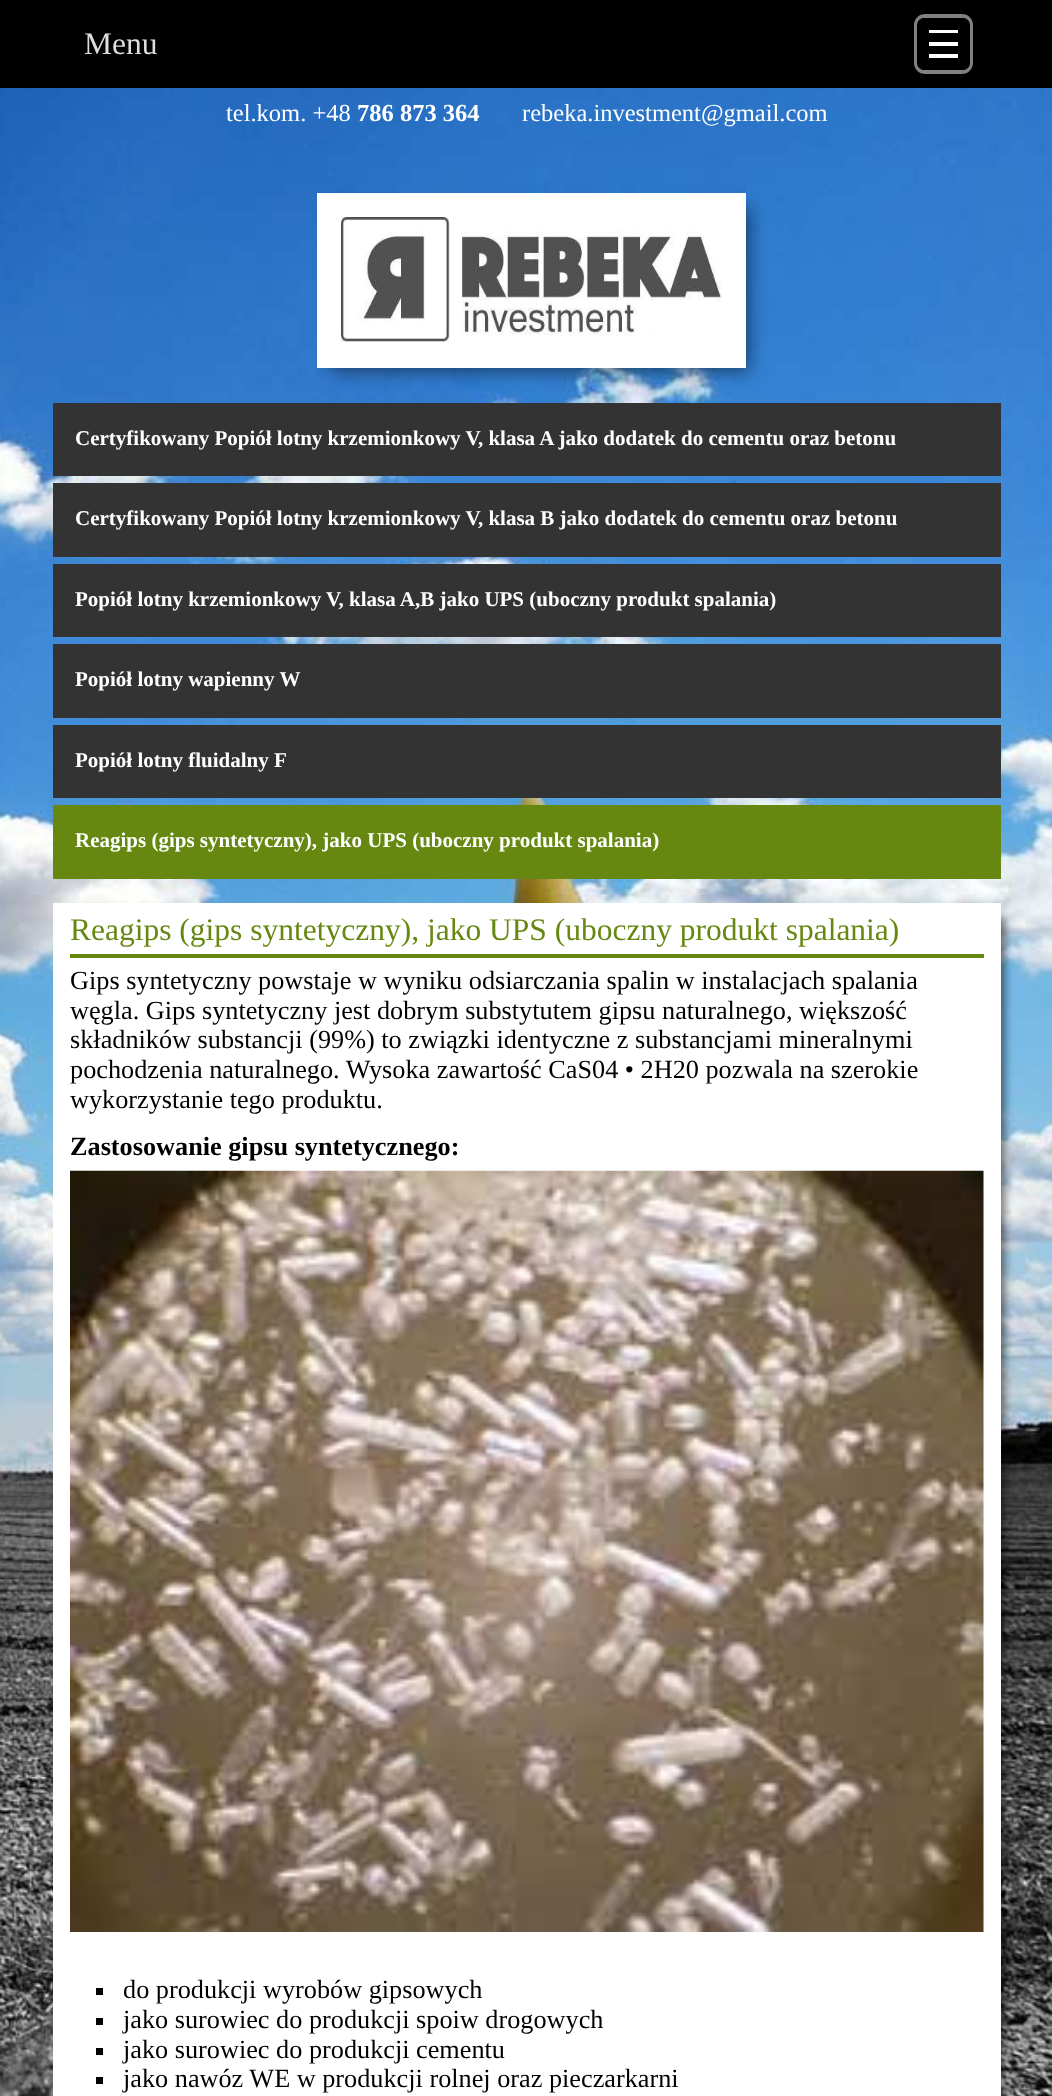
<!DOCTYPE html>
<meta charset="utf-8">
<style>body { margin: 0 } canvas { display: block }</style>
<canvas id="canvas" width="1052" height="2096"></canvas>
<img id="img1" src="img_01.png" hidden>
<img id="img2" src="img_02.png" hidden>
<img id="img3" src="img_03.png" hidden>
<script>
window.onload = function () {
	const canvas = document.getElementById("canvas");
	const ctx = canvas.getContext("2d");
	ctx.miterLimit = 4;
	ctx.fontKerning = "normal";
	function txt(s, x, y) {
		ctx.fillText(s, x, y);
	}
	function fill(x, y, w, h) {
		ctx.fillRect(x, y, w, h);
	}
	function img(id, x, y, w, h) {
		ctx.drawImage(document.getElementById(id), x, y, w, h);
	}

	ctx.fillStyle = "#FFFFFF";
	fill(0, 0, 1052, 2096);
	img("img1", 0, 88, 1052, 2008);
	ctx.fillStyle = "#000000";
	fill(0, 0, 1052, 88);
	ctx.beginPath();
	ctx.roundRect(916, 16, 55, 56, 9);
	ctx.strokeStyle = "#808080";
	ctx.lineWidth = 4;
	ctx.stroke();
	ctx.fillStyle = "#FFFFFF";
	fill(929, 30, 29, 3);
	fill(929, 42, 29, 4);
	fill(929, 54, 29, 4);
	ctx.beginPath();
	ctx.roundRect(923, 24, 41, 40, 1);
	ctx.strokeStyle = "#000000";
	ctx.lineWidth = 12;
	ctx.stroke();
	ctx.fillStyle = "rgba(0, 0, 0, 0.5)";
	ctx.filter = "blur(9px)";
	ctx.beginPath();
	ctx.rect(331, 207, 418, 164);
	ctx.fill();
	ctx.filter = "none";
	ctx.strokeStyle = "#FFFFFF";
	ctx.lineWidth = 18;
	ctx.strokeRect(326, 202, 411, 157);
	img("img2", 335, 211, 393, 139);
	ctx.fillStyle = "#333333";
	fill(53, 403, 948, 73);
	fill(53, 483, 948, 74);
	fill(53, 564, 948, 73);
	fill(53, 644, 948, 74);
	fill(53, 725, 948, 73);
	ctx.fillStyle = "#668811";
	fill(53, 805, 948, 74);
	ctx.fillStyle = "rgba(0, 0, 0, 0.5)";
	ctx.filter = "blur(4.5px)";
	ctx.beginPath();
	ctx.rect(67, 917, 938, 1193);
	ctx.fill();
	ctx.filter = "none";
	ctx.fillStyle = "#FFFFFF";
	fill(53, 903, 948, 1193);
	ctx.fillStyle = "#668811";
	fill(70, 954, 914, 4);
	img("img3", 70, 1170, 914, 762);
	ctx.fillStyle = "#000000";
	fill(96, 1988, 7, 7);
	fill(96, 2018, 7, 7);
	fill(96, 2048, 7, 7);
	fill(96, 2077, 7, 7);
	ctx.font = "31.5px Liberation Serif";
	ctx.fillStyle = "#DDDDDD";
	txt("Menu", 84, 54);
	ctx.font = "24.5px Liberation Serif";
	ctx.fillStyle = "#FFFFFF";
	txt("tel.kom. +48", 226, 121);
	ctx.font = "bold 24.5px Liberation Serif";
	txt("786 873 364", 357, 121);
	ctx.font = "24.5px Liberation Serif";
	txt("rebeka.investment@gmail.com", 522, 121);
	ctx.font = "bold 21px Liberation Serif";
	txt("Certyfikowany Popiół lotny krzemionkowy V, klasa A jako dodatek do cementu oraz betonu", 75, 445);
	txt("Certyfikowany Popiół lotny krzemionkowy V, klasa B jako dodatek do cementu oraz betonu", 75, 525);
	txt("Popiół lotny krzemionkowy V, klasa A,B jako UPS (uboczny produkt spalania)", 75, 606);
	txt("Popiół lotny wapienny W", 75, 686);
	txt("Popiół lotny fluidalny F", 75, 767);
	txt("Reagips (gips syntetyczny), jako UPS (uboczny produkt spalania)", 75, 847);
	ctx.font = "31.5px Liberation Serif";
	ctx.fillStyle = "#668811";
	txt("Reagips (gips syntetyczny), jako UPS (uboczny produkt spalania)", 70, 940);
	ctx.font = "26.25px Liberation Serif";
	ctx.fillStyle = "#000000";
	txt("Gips syntetyczny powstaje w wyniku odsiarczania spalin w instalacjach spalania", 70, 989);
	txt("węgla. Gips syntetyczny jest dobrym substytutem gipsu naturalnego, większość", 70, 1019);
	txt("składników substancji (99%) to związki identyczne z substancjami mineralnymi", 70, 1048);
	txt("pochodzenia naturalnego. Wysoka zawartość CaS04 • 2H20 pozwala na szerokie", 70, 1078);
	txt("wykorzystanie tego produktu.", 70, 1108);
	ctx.font = "bold 26.25px Liberation Serif";
	txt("Zastosowanie gipsu syntetycznego:", 70, 1155);
	ctx.font = "26.25px Liberation Serif";
	txt("do produkcji wyrobów gipsowych", 123, 1998);
	txt("jako surowiec do produkcji spoiw drogowych", 123, 2028);
	txt("jako surowiec do produkcji cementu", 123, 2058);
	txt("jako nawóz WE w produkcji rolnej oraz pieczarkarni", 123, 2087);
};
</script>
